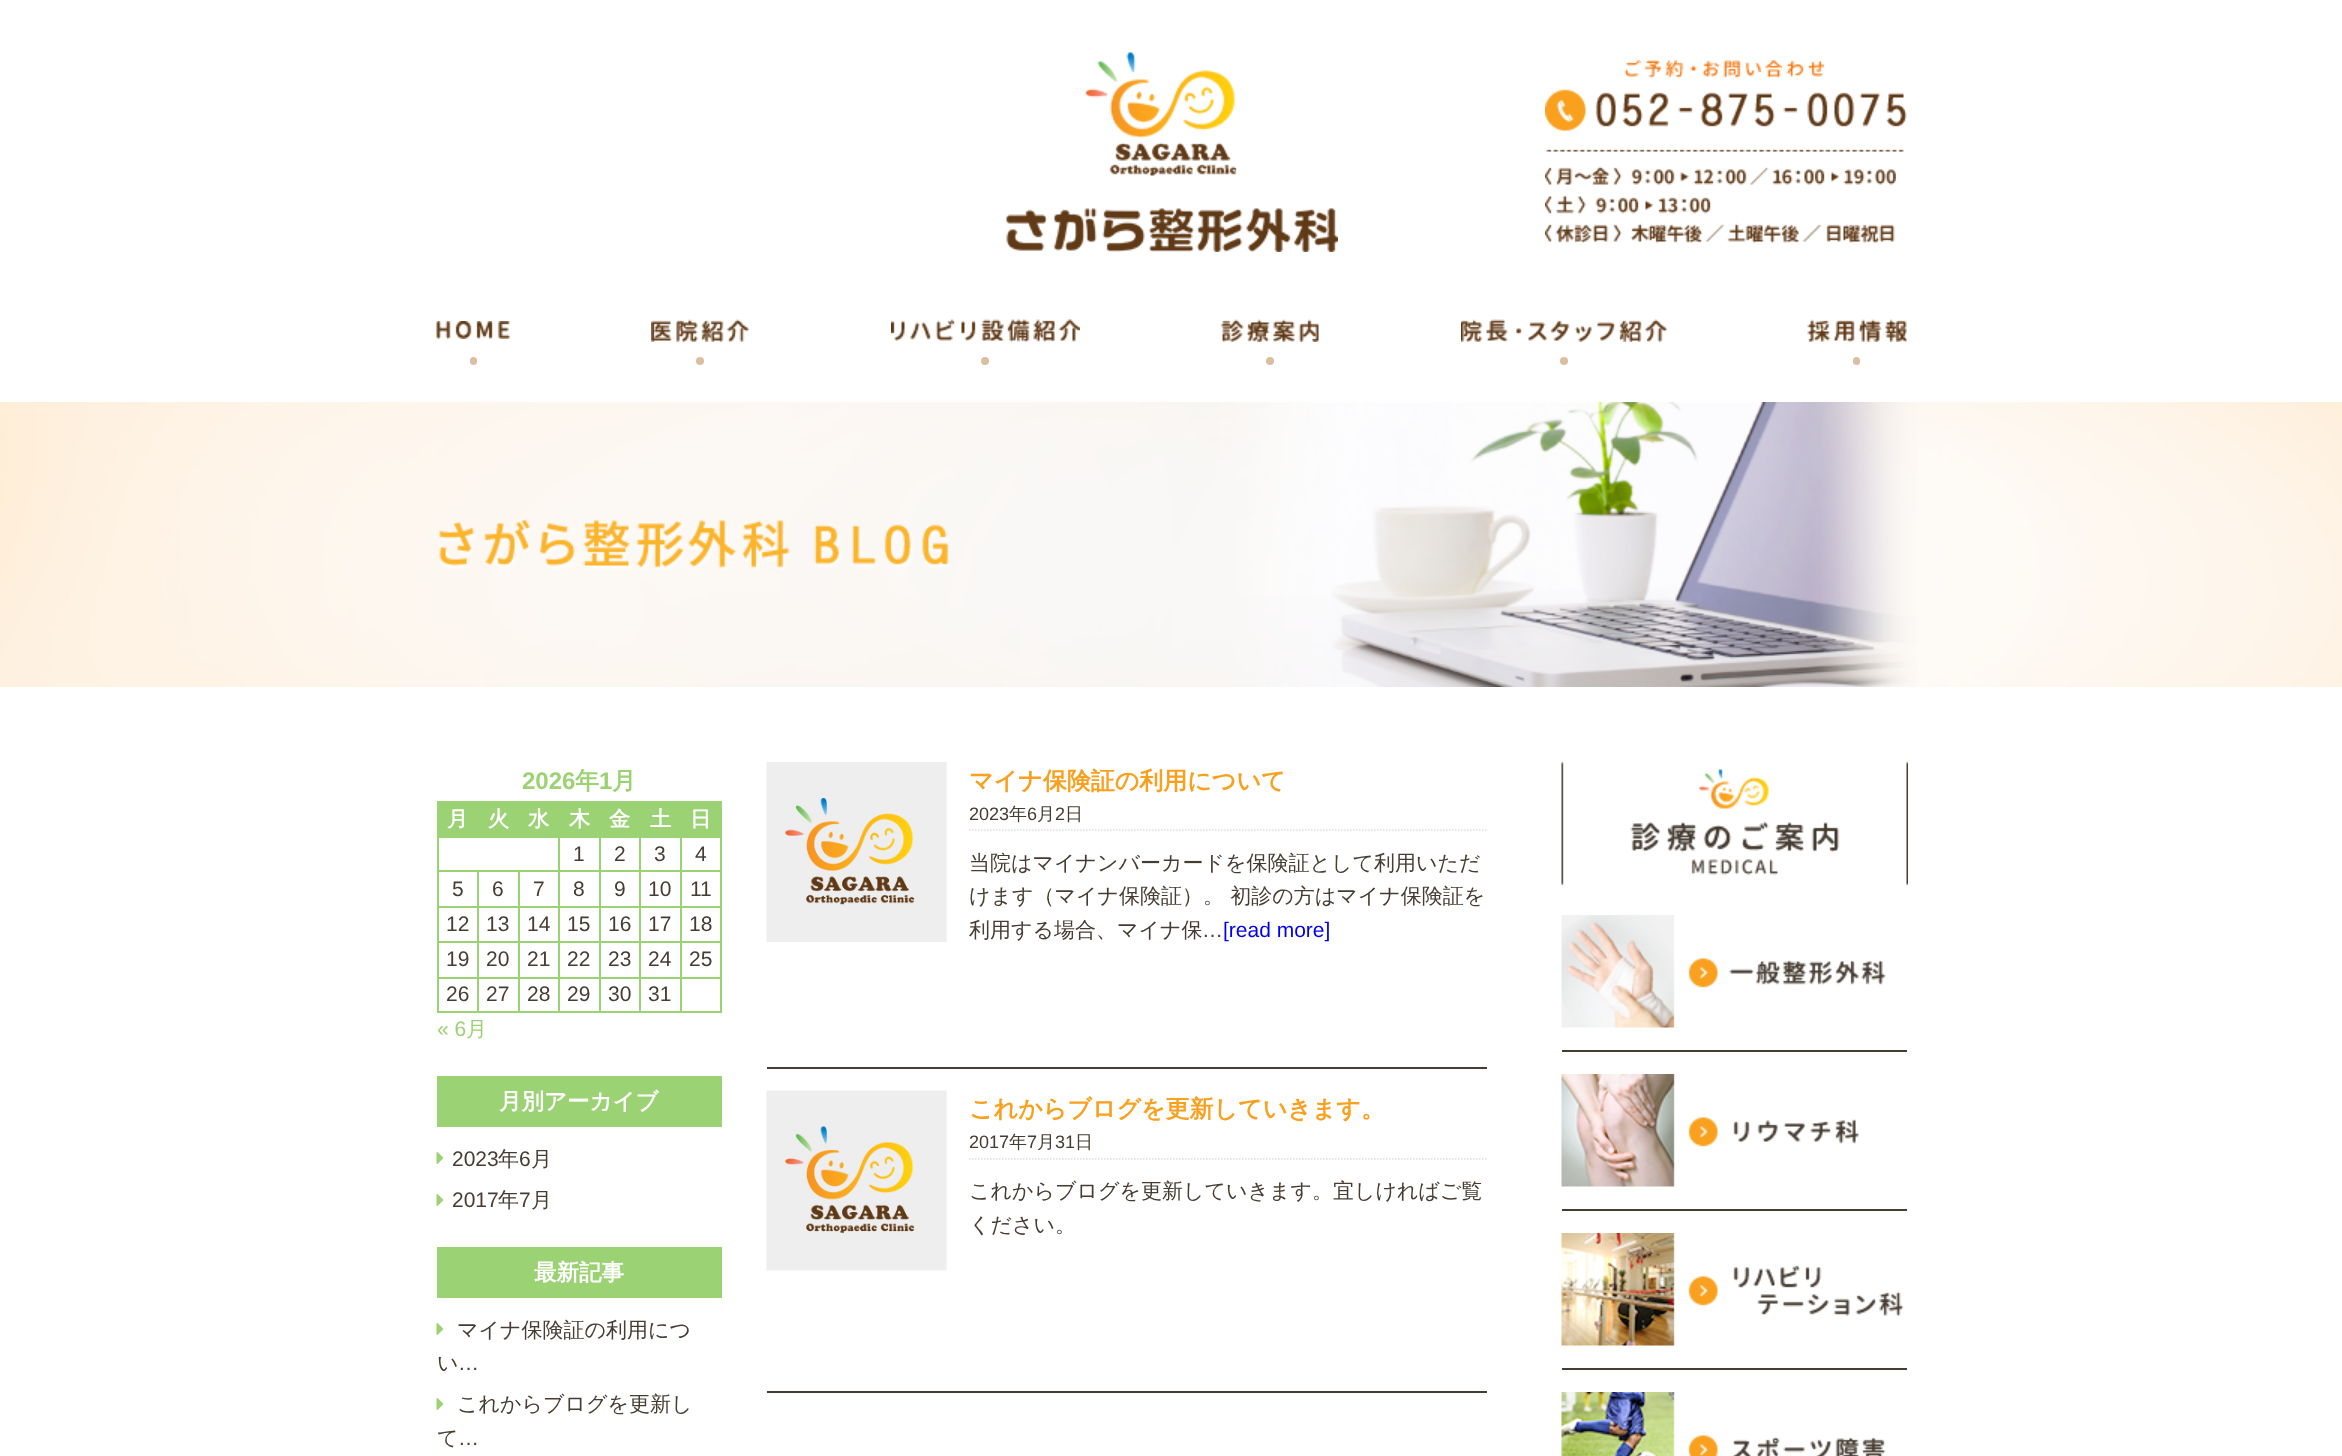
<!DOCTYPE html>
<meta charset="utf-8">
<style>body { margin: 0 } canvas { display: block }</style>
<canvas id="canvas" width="2342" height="1456"></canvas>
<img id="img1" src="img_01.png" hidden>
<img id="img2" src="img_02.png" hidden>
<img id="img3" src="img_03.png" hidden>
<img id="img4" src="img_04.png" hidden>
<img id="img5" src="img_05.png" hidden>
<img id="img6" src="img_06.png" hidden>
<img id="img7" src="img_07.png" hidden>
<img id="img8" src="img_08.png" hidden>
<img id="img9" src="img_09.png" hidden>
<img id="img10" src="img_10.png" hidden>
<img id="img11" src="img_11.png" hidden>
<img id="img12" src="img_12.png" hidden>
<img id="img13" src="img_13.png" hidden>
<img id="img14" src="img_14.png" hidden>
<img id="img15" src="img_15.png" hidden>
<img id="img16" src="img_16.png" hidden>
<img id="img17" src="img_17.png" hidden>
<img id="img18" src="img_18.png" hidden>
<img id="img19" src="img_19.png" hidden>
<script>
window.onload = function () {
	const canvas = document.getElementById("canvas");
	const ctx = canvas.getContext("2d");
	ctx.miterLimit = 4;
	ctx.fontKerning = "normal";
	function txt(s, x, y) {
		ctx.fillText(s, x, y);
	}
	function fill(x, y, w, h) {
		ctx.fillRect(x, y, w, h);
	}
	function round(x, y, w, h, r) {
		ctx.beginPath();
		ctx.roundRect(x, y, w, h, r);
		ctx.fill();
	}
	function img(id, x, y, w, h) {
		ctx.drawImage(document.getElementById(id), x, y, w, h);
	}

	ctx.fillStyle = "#FFFFFF";
	fill(0, 0, 2342, 1456);
	img("img1", 1006, 52, 332, 200);
	img("img2", 1545, 60, 362, 92);
	img("img3", 1545, 166, 351, 77);
	img("img4", 436, 321, 74, 18);
	ctx.fillStyle = "#DCBEA0";
	round(470, 357, 7, 8, 3.5);
	img("img5", 651, 319, 98, 23);
	ctx.beginPath();
	ctx.arc(700, 361, 4, 0, Math.PI * 2);
	ctx.fill();
	img("img6", 891, 319, 189, 23);
	ctx.beginPath();
	ctx.arc(985, 361, 4, 0, Math.PI * 2);
	ctx.fill();
	img("img7", 1221, 319, 98, 23);
	ctx.beginPath();
	ctx.arc(1270, 361, 4, 0, Math.PI * 2);
	ctx.fill();
	img("img8", 1461, 319, 206, 23);
	ctx.beginPath();
	ctx.arc(1564, 361, 4, 0, Math.PI * 2);
	ctx.fill();
	img("img9", 1807, 319, 100, 23);
	round(1853, 357, 7, 8, 3.5);
	img("img10", 0, 402, 2342, 285);
	img("img11", 439, 519, 511, 51);
	ctx.fillStyle = "#9BD273";
	fill(439, 803, 40, 33);
	fill(437, 801, 42, 2);
	fill(680, 836, 42, 2);
	fill(680, 870, 42, 2);
	fill(680, 906, 42, 2);
	fill(680, 941, 42, 2);
	fill(680, 977, 42, 2);
	fill(720, 977, 2, 36);
	fill(680, 1011, 42, 2);
	fill(680, 977, 2, 36);
	fill(639, 977, 42, 2);
	fill(680, 941, 2, 37);
	fill(639, 941, 42, 2);
	fill(680, 906, 2, 36);
	fill(639, 906, 42, 2);
	fill(680, 870, 2, 38);
	fill(639, 870, 42, 2);
	fill(680, 836, 2, 36);
	fill(639, 836, 42, 2);
	fill(639, 1011, 42, 2);
	fill(639, 977, 2, 36);
	fill(599, 977, 42, 2);
	fill(639, 941, 2, 37);
	fill(599, 941, 42, 2);
	fill(639, 906, 2, 36);
	fill(599, 906, 42, 2);
	fill(639, 870, 2, 38);
	fill(599, 870, 42, 2);
	fill(639, 836, 2, 36);
	fill(599, 836, 42, 2);
	fill(599, 1011, 42, 2);
	fill(599, 977, 2, 36);
	fill(558, 977, 42, 2);
	fill(599, 941, 2, 37);
	fill(558, 941, 42, 2);
	fill(599, 906, 2, 36);
	fill(558, 906, 42, 2);
	fill(599, 870, 2, 38);
	fill(558, 870, 42, 2);
	fill(599, 836, 2, 36);
	fill(558, 836, 42, 2);
	fill(558, 1011, 42, 2);
	fill(558, 977, 2, 36);
	fill(518, 977, 42, 2);
	fill(558, 941, 2, 37);
	fill(518, 941, 42, 2);
	fill(558, 906, 2, 36);
	fill(518, 906, 42, 2);
	fill(558, 870, 2, 38);
	fill(518, 870, 42, 2);
	fill(558, 836, 2, 36);
	fill(437, 836, 123, 2);
	fill(518, 1011, 42, 2);
	fill(518, 977, 2, 36);
	fill(477, 977, 42, 2);
	fill(518, 941, 2, 37);
	fill(477, 941, 42, 2);
	fill(518, 906, 2, 36);
	fill(477, 906, 42, 2);
	fill(518, 870, 2, 38);
	fill(477, 870, 42, 2);
	fill(477, 1011, 42, 2);
	fill(477, 977, 2, 36);
	fill(437, 977, 42, 2);
	fill(477, 941, 2, 37);
	fill(437, 941, 42, 2);
	fill(477, 906, 2, 36);
	fill(437, 906, 42, 2);
	fill(477, 870, 2, 38);
	fill(437, 870, 42, 2);
	fill(437, 1011, 42, 2);
	fill(437, 977, 2, 36);
	fill(437, 941, 2, 37);
	fill(437, 906, 2, 36);
	fill(437, 870, 2, 38);
	fill(437, 836, 2, 36);
	fill(437, 801, 2, 36);
	fill(479, 801, 243, 35);
	fill(720, 941, 2, 37);
	fill(720, 906, 2, 36);
	fill(720, 870, 2, 38);
	fill(720, 836, 2, 36);
	fill(437, 1076, 285, 51);
	img("img12", 436, 1152, 8, 12);
	img("img12", 436, 1194, 8, 12);
	fill(437, 1247, 285, 51);
	img("img12", 436, 1323, 8, 12);
	img("img12", 436, 1398, 8, 12);
	ctx.fillStyle = "#463C32";
	fill(767, 1067, 720, 2);
	img("img13", 766, 762, 181, 180);
	ctx.beginPath();
	ctx.moveTo(969, 830);
	ctx.lineTo(1486.5, 830);
	ctx.strokeStyle = "#DDDDDD";
	ctx.lineWidth = 1.5;
	ctx.setLineDash([1.5, 1.5]);
	ctx.stroke();
	fill(767, 1391, 720, 2);
	img("img14", 766, 1090, 181, 181);
	ctx.beginPath();
	ctx.moveTo(969, 1159);
	ctx.lineTo(1486.5, 1159);
	ctx.stroke();
	img("img15", 1561, 762, 347, 123);
	fill(1562, 1050, 345, 2);
	img("img16", 1561, 915, 325, 113);
	fill(1562, 1209, 345, 2);
	img("img17", 1561, 1074, 298, 113);
	fill(1562, 1368, 345, 2);
	img("img18", 1561, 1233, 343, 113);
	img("img19", 1561, 1392, 325, 64);
	ctx.font = "bold 24px Liberation Sans";
	ctx.fillStyle = "#9BD273";
	txt("2026", 522, 789);
	ctx.font = "bold 24px WenQuanYi Zen Hei";
	txt("年", 575, 789);
	ctx.font = "bold 24px Liberation Sans";
	txt("1", 599, 789);
	ctx.font = "bold 24px WenQuanYi Zen Hei";
	txt("月", 612, 789);
	ctx.font = "bold 21px WenQuanYi Zen Hei";
	ctx.fillStyle = "#FFFFFF";
	txt("月", 447, 826);
	txt("火", 488, 826);
	txt("水", 528, 826);
	txt("木", 569, 826);
	txt("金", 609, 826);
	txt("土", 650, 826);
	txt("日", 690, 826);
	ctx.font = "21px Liberation Sans";
	ctx.fillStyle = "#463C32";
	txt("1", 573, 861);
	txt("2", 614, 861);
	txt("3", 654, 861);
	txt("4", 695, 861);
	txt("5", 452, 896);
	txt("6", 492, 896);
	txt("7", 533, 896);
	txt("8", 573, 896);
	txt("9", 614, 896);
	txt("10", 648, 896);
	txt("11", 690, 896);
	txt("12", 446, 931);
	txt("13", 486, 931);
	txt("14", 527, 931);
	txt("15", 567, 931);
	txt("16", 608, 931);
	txt("17", 648, 931);
	txt("18", 689, 931);
	txt("19", 446, 966);
	txt("20", 486, 966);
	txt("21", 527, 966);
	txt("22", 567, 966);
	txt("23", 608, 966);
	txt("24", 648, 966);
	txt("25", 689, 966);
	txt("26", 446, 1001);
	txt("27", 486, 1001);
	txt("28", 527, 1001);
	txt("29", 567, 1001);
	txt("30", 608, 1001);
	txt("31", 648, 1001);
	ctx.fillStyle = "#9BD273";
	txt("« 6", 437, 1036);
	ctx.font = "500 21px WenQuanYi Zen Hei";
	txt("月", 466, 1036);
	ctx.font = "bold 22.5px WenQuanYi Zen Hei";
	ctx.fillStyle = "#FFFFFF";
	txt("月別アーカイブ", 499, 1109);
	ctx.font = "21px Liberation Sans";
	ctx.fillStyle = "#463C32";
	txt("2023", 452, 1166);
	ctx.font = "500 21px WenQuanYi Zen Hei";
	txt("年", 498, 1166);
	ctx.font = "21px Liberation Sans";
	txt("6", 519, 1166);
	ctx.font = "500 21px WenQuanYi Zen Hei";
	txt("月", 531, 1166);
	ctx.font = "21px Liberation Sans";
	txt("2017", 452, 1207);
	ctx.font = "500 21px WenQuanYi Zen Hei";
	txt("年", 498, 1207);
	ctx.font = "21px Liberation Sans";
	txt("7", 519, 1207);
	ctx.font = "500 21px WenQuanYi Zen Hei";
	txt("月", 531, 1207);
	ctx.font = "bold 22.5px WenQuanYi Zen Hei";
	ctx.fillStyle = "#FFFFFF";
	txt("最新記事", 534, 1280);
	ctx.font = "500 21px WenQuanYi Zen Hei";
	ctx.fillStyle = "#463C32";
	txt("マイナ保険証の利用につ", 457, 1337);
	txt("い", 437, 1370);
	ctx.font = "21px Liberation Sans";
	txt("…", 458, 1370);
	ctx.font = "500 21px WenQuanYi Zen Hei";
	txt("これからブログを更新し", 457, 1411);
	txt("て", 437, 1445);
	ctx.font = "21px Liberation Sans";
	txt("…", 458, 1445);
	ctx.font = "bold 24px WenQuanYi Zen Hei";
	ctx.fillStyle = "#F9A01F";
	txt("マイナ保険証の利用について", 969, 789);
	ctx.font = "18px Liberation Sans";
	ctx.fillStyle = "#463C32";
	txt("2023", 969, 820);
	ctx.font = "500 18px WenQuanYi Zen Hei";
	txt("年", 1009, 820);
	ctx.font = "18px Liberation Sans";
	txt("6", 1027, 820);
	ctx.font = "500 18px WenQuanYi Zen Hei";
	txt("月", 1037, 820);
	ctx.font = "18px Liberation Sans";
	txt("2", 1055, 820);
	ctx.font = "500 18px WenQuanYi Zen Hei";
	txt("日", 1065, 820);
	ctx.font = "500 21px WenQuanYi Zen Hei";
	txt("当院はマイナンバーカードを保険証として利用いただ", 969, 870);
	txt("けます（マイナ保険証）。 初診の方はマイナ保険証を", 969, 903);
	txt("利用する場合、マイナ保", 969, 937);
	ctx.font = "21px Liberation Sans";
	txt("…", 1202, 937);
	ctx.fillStyle = "#0000EE";
	txt("[read more]", 1223, 937);
	ctx.font = "bold 24px WenQuanYi Zen Hei";
	ctx.fillStyle = "#F9A01F";
	txt("これからブログを更新していきます。", 969, 1117);
	ctx.font = "18px Liberation Sans";
	ctx.fillStyle = "#463C32";
	txt("2017", 969, 1148);
	ctx.font = "500 18px WenQuanYi Zen Hei";
	txt("年", 1009, 1148);
	ctx.font = "18px Liberation Sans";
	txt("7", 1027, 1148);
	ctx.font = "500 18px WenQuanYi Zen Hei";
	txt("月", 1037, 1148);
	ctx.font = "18px Liberation Sans";
	txt("31", 1055, 1148);
	ctx.font = "500 18px WenQuanYi Zen Hei";
	txt("日", 1075, 1148);
	ctx.font = "500 21px WenQuanYi Zen Hei";
	txt("これからブログを更新していきます。宜しければご覧", 969, 1198);
	txt("ください。", 969, 1232);
};
</script>
